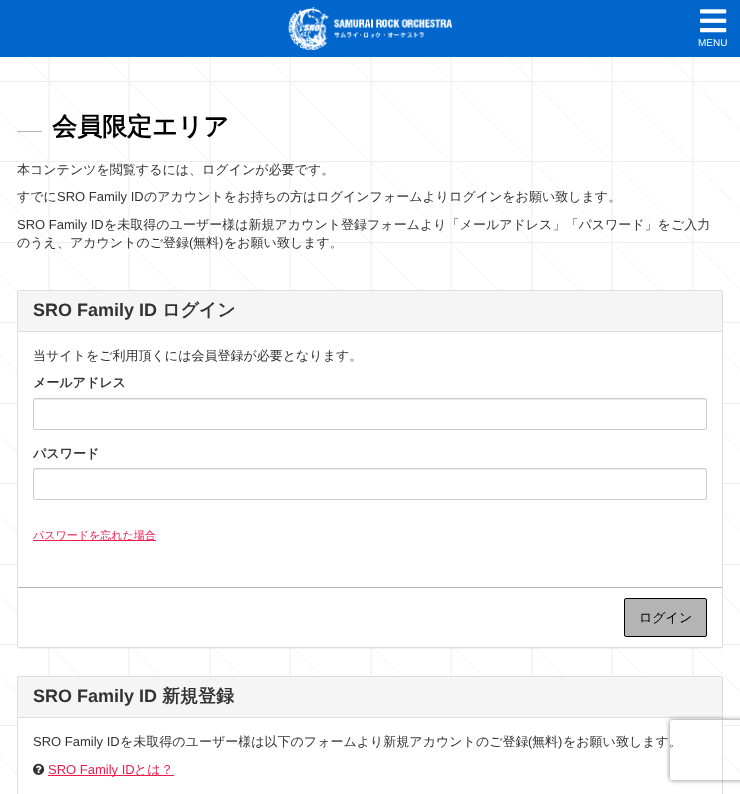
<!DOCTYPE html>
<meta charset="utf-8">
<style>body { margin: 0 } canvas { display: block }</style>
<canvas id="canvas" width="740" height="794"></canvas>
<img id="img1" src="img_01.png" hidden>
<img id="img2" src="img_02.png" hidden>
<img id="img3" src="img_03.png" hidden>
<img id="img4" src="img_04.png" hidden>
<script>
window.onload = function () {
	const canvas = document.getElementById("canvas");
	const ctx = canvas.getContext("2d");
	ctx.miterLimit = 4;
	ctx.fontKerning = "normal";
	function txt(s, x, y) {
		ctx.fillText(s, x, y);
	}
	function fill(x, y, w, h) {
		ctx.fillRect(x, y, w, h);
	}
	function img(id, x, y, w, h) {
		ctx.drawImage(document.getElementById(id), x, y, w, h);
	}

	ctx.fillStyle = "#FFFFFF";
	fill(0, 0, 740, 794);
	img("img1", 0, 57, 740, 719);
	ctx.fillStyle = "#0066CC";
	fill(0, 0, 740, 57);
	img("img2", 288, 7, 164, 43);
	img("img3", 700, 9, 27, 24);
	ctx.fillStyle = "#B4B4B4";
	fill(17, 131, 25, 1);
	ctx.fillStyle = "rgba(0, 0, 0, 0.05)";
	ctx.filter = "blur(0.5px)";
	ctx.beginPath();
	ctx.roundRect(17, 291, 706, 358, 2);
	ctx.fill();
	ctx.filter = "none";
	ctx.fillStyle = "#FFFFFF";
	ctx.beginPath();
	ctx.roundRect(17.5, 290.5, 705, 357, 1.5);
	ctx.fill();
	ctx.strokeStyle = "#DDDDDD";
	ctx.stroke();
	ctx.fillStyle = "#F5F5F5";
	ctx.beginPath();
	ctx.roundRect(18, 291, 704, 41, [1, 1, 0, 0]);
	ctx.fill();
	ctx.fillStyle = "#DDDDDD";
	fill(18, 331, 704, 1);
	ctx.fillStyle = "#ECECEC";
	ctx.beginPath();
	ctx.moveTo(35, 400);
	ctx.lineTo(705, 400);
	ctx.bezierCurveTo(706, 400, 706, 400, 706, 401);
	ctx.bezierCurveTo(706, 400, 706, 399, 705, 399);
	ctx.lineTo(35, 399);
	ctx.bezierCurveTo(34, 399, 34, 400, 34, 401);
	ctx.bezierCurveTo(34, 400, 34, 400, 35, 400);
	ctx.closePath();
	ctx.fill();
	ctx.beginPath();
	ctx.roundRect(33.5, 398.5, 673, 31, 1.5);
	ctx.strokeStyle = "#CCCCCC";
	ctx.stroke();
	ctx.beginPath();
	ctx.moveTo(35, 470);
	ctx.lineTo(705, 470);
	ctx.bezierCurveTo(706, 470, 706, 470, 706, 471);
	ctx.bezierCurveTo(706, 470, 706, 469, 705, 469);
	ctx.lineTo(35, 469);
	ctx.bezierCurveTo(34, 469, 34, 470, 34, 471);
	ctx.bezierCurveTo(34, 470, 34, 470, 35, 470);
	ctx.closePath();
	ctx.fill();
	ctx.beginPath();
	ctx.roundRect(33.5, 468.5, 673, 31, 1.5);
	ctx.stroke();
	ctx.fillStyle = "#ED1B4D";
	fill(33, 540, 123, 1);
	ctx.fillStyle = "#B4B4B4";
	fill(18, 587, 704, 1);
	ctx.beginPath();
	ctx.roundRect(624.5, 598.5, 82, 38, 1.5);
	ctx.fill();
	ctx.strokeStyle = "#000000";
	ctx.stroke();
	ctx.fillStyle = "#FFFFFF";
	ctx.beginPath();
	ctx.roundRect(17.5, 676.5, 705, 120, 1.5);
	ctx.fill();
	ctx.strokeStyle = "#DDDDDD";
	ctx.stroke();
	ctx.fillStyle = "#F5F5F5";
	ctx.beginPath();
	ctx.roundRect(18, 677, 704, 41, [1, 1, 0, 0]);
	ctx.fill();
	ctx.fillStyle = "#DDDDDD";
	fill(18, 717, 704, 1);
	img("img4", 33, 763, 12, 12);
	ctx.fillStyle = "#ED1B4D";
	fill(48, 775, 126, 1);
	ctx.save();
	ctx.beginPath();
	ctx.moveTo(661, 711);
	ctx.lineTo(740, 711);
	ctx.lineTo(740, 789);
	ctx.lineTo(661, 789);
	ctx.closePath();
	ctx.moveTo(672, 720);
	ctx.lineTo(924, 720);
	ctx.bezierCurveTo(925, 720, 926, 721, 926, 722);
	ctx.lineTo(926, 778);
	ctx.bezierCurveTo(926, 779, 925, 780, 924, 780);
	ctx.lineTo(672, 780);
	ctx.bezierCurveTo(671, 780, 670, 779, 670, 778);
	ctx.lineTo(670, 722);
	ctx.bezierCurveTo(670, 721, 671, 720, 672, 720);
	ctx.closePath();
	ctx.clip("evenodd");
	ctx.fillStyle = "#808080";
	ctx.filter = "blur(2.5px)";
	ctx.beginPath();
	ctx.roundRect(670, 720, 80, 60, 2);
	ctx.fill();
	ctx.filter = "none";
	ctx.restore();
	ctx.font = "10px Liberation Sans";
	ctx.fillStyle = "#FFFFFF";
	txt("MENU", 698, 46);
	ctx.font = "bold 25px WenQuanYi Zen Hei";
	ctx.fillStyle = "#000000";
	txt("会員限定エリア", 52, 135);
	ctx.font = "500 13px WenQuanYi Zen Hei";
	ctx.fillStyle = "#333333";
	txt("本コンテンツを閲覧するには、ログインが必要です。", 17, 174);
	txt("すでに", 17, 201);
	ctx.font = "13px Liberation Sans";
	txt("SRO Family ID", 57, 201);
	ctx.font = "500 13px WenQuanYi Zen Hei";
	txt("のアカウントをお持ちの方はログインフォームよりログインをお願い致します。", 144, 201);
	ctx.font = "13px Liberation Sans";
	txt("SRO Family ID", 17, 229);
	ctx.font = "500 13px WenQuanYi Zen Hei";
	txt("を未取得のユーザー様は新規アカウント登録フォームより「メールアドレス」「パスワード」をご入力", 104, 229);
	txt("のうえ、アカウントのご登録", 17, 247);
	ctx.font = "13px Liberation Sans";
	txt("(", 189, 247);
	ctx.font = "500 13px WenQuanYi Zen Hei";
	txt("無料", 193, 247);
	ctx.font = "13px Liberation Sans";
	txt(")", 219, 247);
	ctx.font = "500 13px WenQuanYi Zen Hei";
	txt("をお願い致します。", 224, 247);
	ctx.font = "bold 18px Liberation Sans";
	txt("SRO Family ID", 33, 316);
	ctx.font = "bold 18px WenQuanYi Zen Hei";
	txt("ログイン", 162, 316);
	ctx.font = "500 13px WenQuanYi Zen Hei";
	txt("当サイトをご利用頂くには会員登録が必要となります。", 33, 360);
	ctx.font = "bold 13px WenQuanYi Zen Hei";
	txt("メールアドレス", 33, 387);
	txt("パスワード", 33, 458);
	ctx.font = "500 11px WenQuanYi Zen Hei";
	ctx.fillStyle = "#ED1B4D";
	txt("パスワードを忘れた場合", 33, 539);
	ctx.font = "500 13px WenQuanYi Zen Hei";
	ctx.fillStyle = "#000000";
	txt("ログイン", 639, 622);
	ctx.font = "bold 18px Liberation Sans";
	ctx.fillStyle = "#333333";
	txt("SRO Family ID", 33, 702);
	ctx.font = "bold 18px WenQuanYi Zen Hei";
	txt("新規登録", 162, 702);
	ctx.font = "13px Liberation Sans";
	txt("SRO Family ID", 33, 746);
	ctx.font = "500 13px WenQuanYi Zen Hei";
	txt("を未取得のユーザー様は以下のフォームより新規アカウントのご登録", 120, 746);
	ctx.font = "13px Liberation Sans";
	txt("(", 528, 746);
	ctx.font = "500 13px WenQuanYi Zen Hei";
	txt("無料", 532, 746);
	ctx.font = "13px Liberation Sans";
	txt(")", 558, 746);
	ctx.font = "500 13px WenQuanYi Zen Hei";
	txt("をお願い致します。", 563, 746);
	ctx.font = "13px Liberation Sans";
	ctx.fillStyle = "#ED1B4D";
	txt("SRO Family ID", 48, 774);
	ctx.font = "500 13px WenQuanYi Zen Hei";
	txt("とは？", 134, 774);
};
</script>
